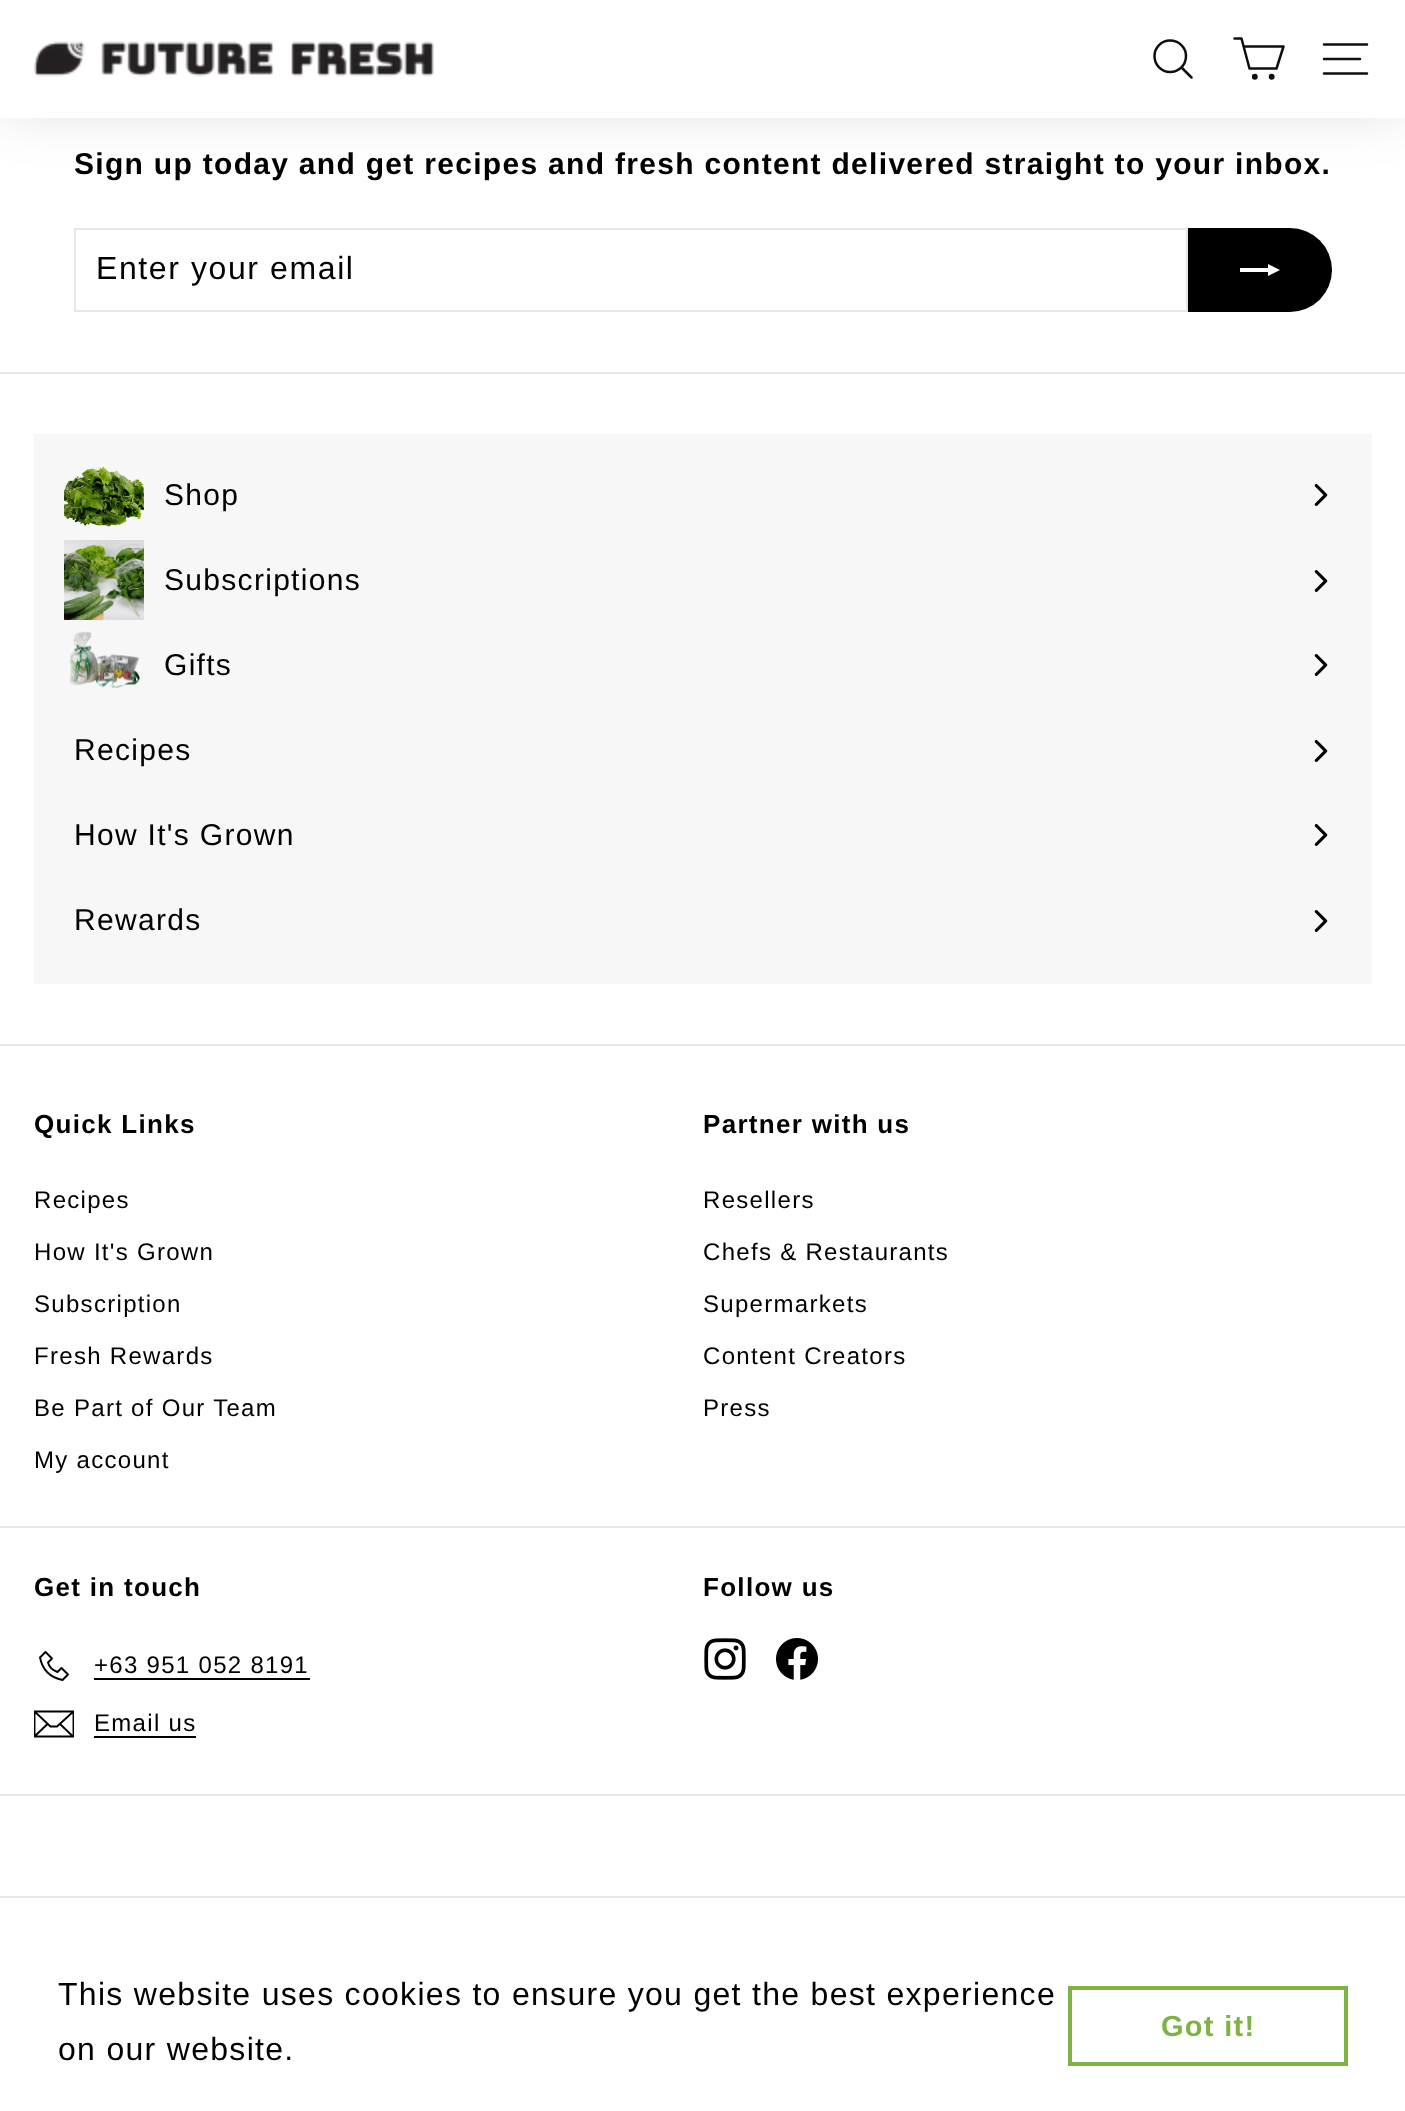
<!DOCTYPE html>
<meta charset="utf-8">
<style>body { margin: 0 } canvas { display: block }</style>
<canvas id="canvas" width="1405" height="2111"></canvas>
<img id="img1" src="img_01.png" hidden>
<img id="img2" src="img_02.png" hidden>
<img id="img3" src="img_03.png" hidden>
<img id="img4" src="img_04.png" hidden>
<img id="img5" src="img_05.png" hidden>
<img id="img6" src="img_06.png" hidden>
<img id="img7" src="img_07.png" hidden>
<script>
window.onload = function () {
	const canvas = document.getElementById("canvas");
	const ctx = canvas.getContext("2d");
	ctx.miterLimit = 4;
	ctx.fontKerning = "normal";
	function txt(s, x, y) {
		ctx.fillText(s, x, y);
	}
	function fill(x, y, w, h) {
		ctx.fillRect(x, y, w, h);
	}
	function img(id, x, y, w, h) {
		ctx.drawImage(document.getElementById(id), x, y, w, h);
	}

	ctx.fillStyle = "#FFFFFF";
	fill(0, 0, 1405, 2111);
	ctx.fillStyle = "rgba(0, 0, 0, 0.1)";
	ctx.filter = "blur(25px)";
	ctx.beginPath();
	ctx.rect(0, 0, 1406, 118);
	ctx.fill();
	ctx.filter = "none";
	ctx.fillStyle = "#FFFFFF";
	fill(0, 0, 1405, 118);
	img("img1", 34, 41, 400, 36);
	ctx.beginPath();
	ctx.moveTo(1186, 56);
	ctx.bezierCurveTo(1186, 65, 1179, 72, 1170, 72);
	ctx.bezierCurveTo(1161.5, 72, 1154.5, 65, 1154.5, 56);
	ctx.bezierCurveTo(1154.5, 47.5, 1161.5, 40.5, 1170, 40.5);
	ctx.bezierCurveTo(1179, 40.5, 1186, 47.5, 1186, 56);
	ctx.closePath();
	ctx.moveTo(1191.5, 77.5);
	ctx.lineTo(1181.5, 67.5);
	ctx.strokeStyle = "#0F0F0F";
	ctx.lineWidth = 2.5;
	ctx.lineCap = "round";
	ctx.lineJoin = "round";
	ctx.stroke();
	ctx.beginPath();
	ctx.moveTo(1244, 46.5);
	ctx.lineTo(1283.5, 46.5);
	ctx.lineTo(1276.5, 68.5);
	ctx.lineTo(1249.5, 68.5);
	ctx.lineTo(1241.5, 38.5);
	ctx.lineTo(1234.5, 38.5);
	ctx.stroke();
	ctx.fillStyle = "#0F0F0F";
	ctx.beginPath();
	ctx.arc(1254.8, 76.7, 1.7, 0, Math.PI * 2);
	ctx.fill();
	ctx.stroke();
	ctx.beginPath();
	ctx.arc(1271.7, 76.7, 1.7, 0, Math.PI * 2);
	ctx.fill();
	ctx.stroke();
	ctx.beginPath();
	ctx.moveTo(1324, 44.5);
	ctx.lineTo(1367, 44.5);
	ctx.moveTo(1324, 59);
	ctx.lineTo(1360, 59);
	ctx.moveTo(1324, 73.5);
	ctx.lineTo(1367, 73.5);
	ctx.stroke();
	ctx.strokeStyle = "#E8E8E1";
	ctx.lineWidth = 2;
	ctx.lineJoin = "miter";
	ctx.strokeRect(75, 229, 1112, 82);
	ctx.fillStyle = "#000000";
	ctx.beginPath();
	ctx.roundRect(1188, 228, 144, 84, [0, 42, 42, 0]);
	ctx.fill();
	ctx.fillStyle = "#FFFFFF";
	ctx.beginPath();
	ctx.moveTo(1240, 272);
	ctx.lineTo(1240, 268);
	ctx.lineTo(1268, 268);
	ctx.lineTo(1268, 264);
	ctx.lineTo(1280, 270);
	ctx.lineTo(1268, 276);
	ctx.lineTo(1268, 272);
	ctx.closePath();
	ctx.fill();
	ctx.fillStyle = "#E8E8E1";
	fill(0, 372, 1405, 2);
	img("img2", 64, 466, 80, 61);
	img("img3", 1314, 484, 14, 22);
	img("img4", 64, 540, 80, 80);
	img("img3", 1314, 570, 14, 22);
	img("img5", 69, 631, 71, 57);
	img("img3", 1314, 654, 14, 22);
	img("img3", 1314, 740, 14, 22);
	img("img3", 1314, 824, 14, 22);
	img("img3", 1314, 910, 14, 22);
	ctx.fillStyle = "rgba(0, 0, 0, 0.03)";
	fill(34, 434, 1338, 550);
	ctx.fillStyle = "#E8E8E1";
	fill(0, 1044, 1405, 2);
	fill(0, 1526, 1405, 2);
	ctx.beginPath();
	ctx.moveTo(45.5, 1652);
	ctx.lineTo(52, 1658.5);
	ctx.lineTo(48, 1662.5);
	ctx.bezierCurveTo(49, 1666.5, 52, 1670, 57.5, 1672);
	ctx.lineTo(61.5, 1668);
	ctx.lineTo(68, 1674.5);
	ctx.lineTo(62.5, 1680);
	ctx.bezierCurveTo(50, 1677.5, 42.5, 1670, 40, 1657.5);
	ctx.closePath();
	ctx.strokeStyle = "#000000";
	ctx.lineWidth = 1.9;
	ctx.lineJoin = "round";
	ctx.stroke();
	ctx.fillStyle = "#000000";
	fill(94, 1678, 216, 2);
	ctx.save();
	ctx.beginPath();
	ctx.rect(34, 1704, 40, 40);
	ctx.clip();
	ctx.beginPath();
	ctx.moveTo(73.5, 1736.5);
	ctx.lineTo(34.5, 1736.5);
	ctx.lineTo(34.5, 1711.5);
	ctx.lineTo(73.5, 1711.5);
	ctx.closePath();
	ctx.moveTo(34.5, 1711.5);
	ctx.lineTo(50.5, 1726.5);
	ctx.lineTo(57, 1726.5);
	ctx.lineTo(73.5, 1711.5);
	ctx.moveTo(47.5, 1724);
	ctx.lineTo(35, 1736);
	ctx.moveTo(73, 1736.5);
	ctx.lineTo(60, 1724);
	ctx.stroke();
	ctx.restore();
	fill(94, 1736, 102, 2);
	img("img6", 704, 1638, 42, 42);
	img("img7", 776, 1638, 42, 42);
	ctx.fillStyle = "#E8E8E1";
	fill(0, 1794, 1405, 2);
	fill(0, 1896, 1405, 2);
	ctx.strokeStyle = "#7CB342";
	ctx.lineWidth = 4;
	ctx.lineJoin = "miter";
	ctx.strokeRect(1070, 1988, 276, 76);
	ctx.letterSpacing = "1.3px";
	ctx.font = "bold 30px Arimo";
	ctx.fillStyle = "#000000";
	txt("Sign up today and get recipes and fresh content delivered straight to your inbox.", 74, 174);
	ctx.letterSpacing = "1.6px";
	ctx.font = "32px Arimo";
	txt("Enter your email", 96, 279);
	ctx.letterSpacing = "1.3px";
	ctx.font = "30px Arimo";
	txt("Shop", 164, 505);
	txt("Subscriptions", 164, 590);
	txt("Gifts", 164, 675);
	txt("Recipes", 74, 760);
	txt("How It's Grown", 74, 845);
	txt("Rewards", 74, 930);
	ctx.font = "bold 26px Arimo";
	txt("Quick Links", 34, 1133);
	ctx.font = "24px Arimo";
	txt("Recipes", 34, 1208);
	txt("How It's Grown", 34, 1260);
	txt("Subscription", 34, 1312);
	txt("Fresh Rewards", 34, 1364);
	txt("Be Part of Our Team", 34, 1416);
	txt("My account", 34, 1468);
	ctx.font = "bold 26px Arimo";
	txt("Partner with us", 703, 1133);
	ctx.font = "24px Arimo";
	txt("Resellers", 703, 1208);
	txt("Chefs & Restaurants", 703, 1260);
	txt("Supermarkets", 703, 1312);
	txt("Content Creators", 703, 1364);
	txt("Press", 703, 1416);
	ctx.font = "bold 26px Arimo";
	txt("Get in touch", 34, 1596);
	ctx.font = "24px Arimo";
	txt("+63 951 052 8191", 94, 1673);
	txt("Email us", 94, 1731);
	ctx.font = "bold 26px Arimo";
	txt("Follow us", 703, 1596);
	ctx.font = "32px Liberation Sans";
	txt("This website uses cookies to ensure you get the best experience", 58, 2005);
	txt("on our website.", 58, 2060);
	ctx.font = "bold 29px Liberation Sans";
	ctx.fillStyle = "#7CB342";
	txt("Got it!", 1161, 2036);
};
</script>
